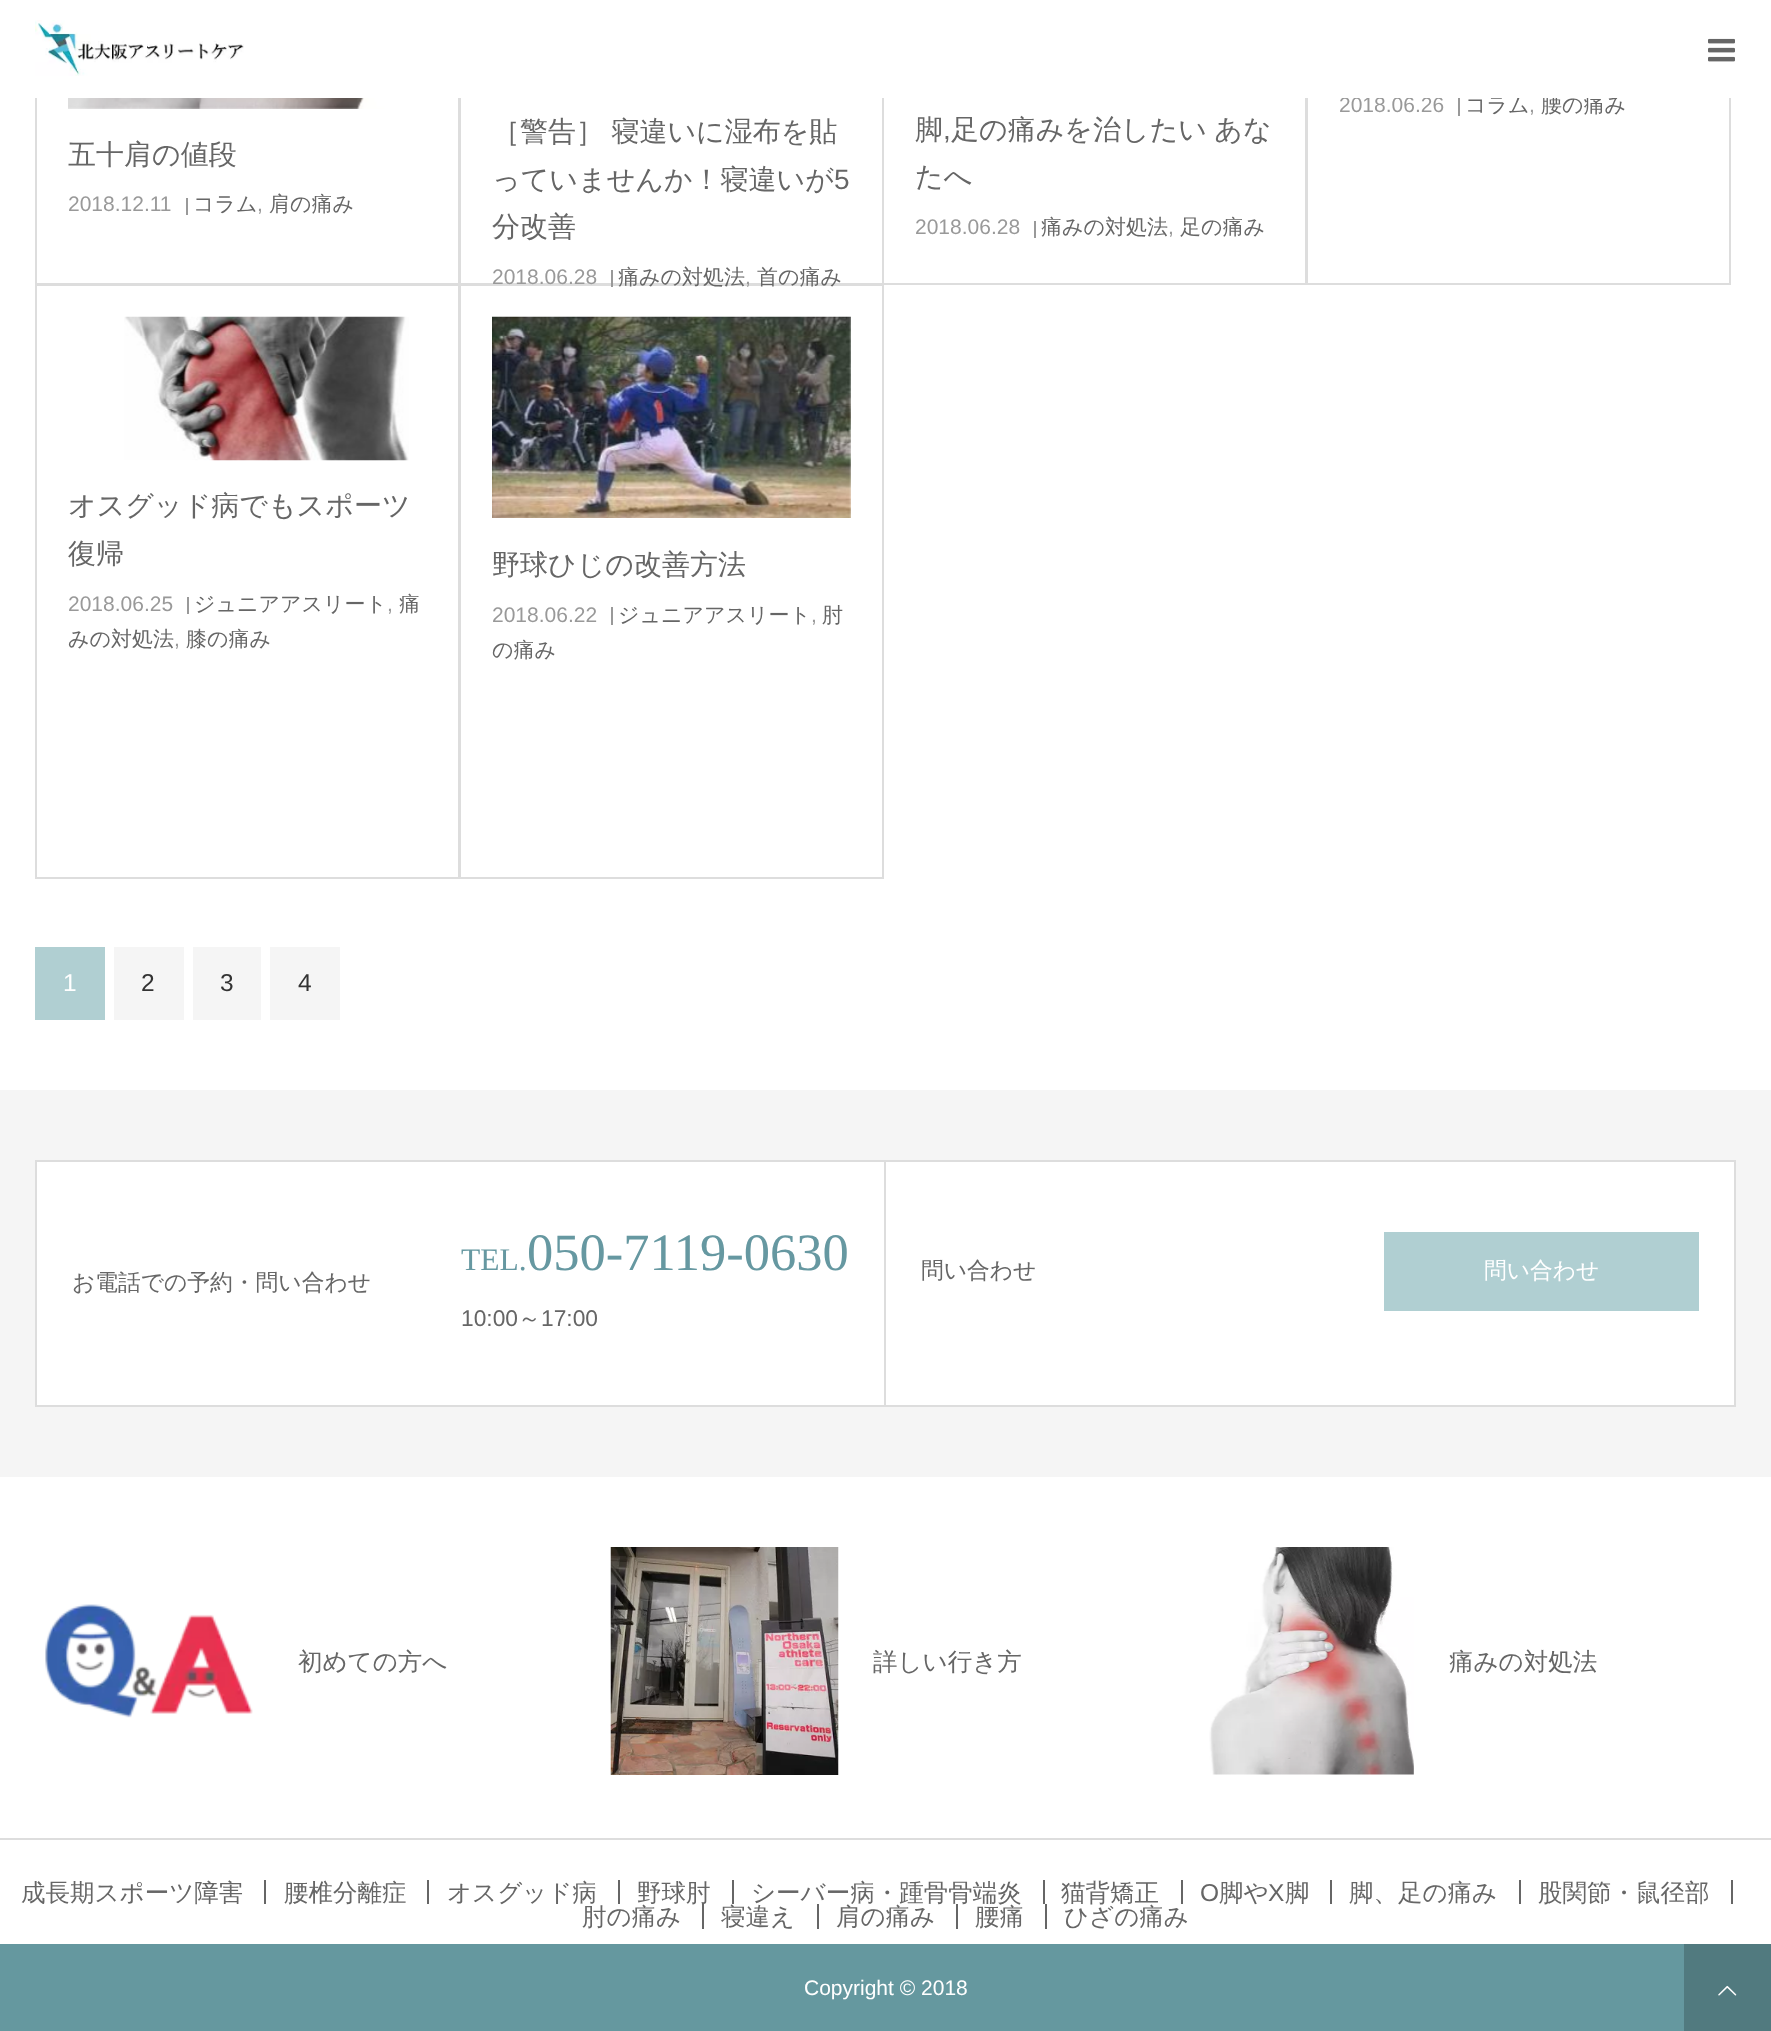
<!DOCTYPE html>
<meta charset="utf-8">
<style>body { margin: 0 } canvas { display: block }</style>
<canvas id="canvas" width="1771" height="2031"></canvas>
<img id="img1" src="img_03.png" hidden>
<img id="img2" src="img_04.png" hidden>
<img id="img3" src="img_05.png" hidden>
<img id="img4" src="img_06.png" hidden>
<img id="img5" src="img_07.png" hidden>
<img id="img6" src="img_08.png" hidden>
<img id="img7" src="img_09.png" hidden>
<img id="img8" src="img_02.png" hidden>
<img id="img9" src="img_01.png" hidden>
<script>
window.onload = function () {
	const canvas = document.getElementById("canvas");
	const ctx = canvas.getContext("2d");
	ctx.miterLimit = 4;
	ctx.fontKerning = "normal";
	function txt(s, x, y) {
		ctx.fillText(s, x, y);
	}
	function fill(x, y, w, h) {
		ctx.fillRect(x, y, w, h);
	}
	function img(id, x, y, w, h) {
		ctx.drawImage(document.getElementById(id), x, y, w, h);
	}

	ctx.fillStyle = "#FFFFFF";
	fill(0, 0, 1771, 2031);
	ctx.strokeStyle = "#DDDDDD";
	ctx.lineWidth = 2;
	ctx.strokeRect(36, -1, 423, 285);
	ctx.strokeRect(460, -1, 423, 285);
	ctx.strokeRect(883, -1, 423, 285);
	ctx.strokeRect(1307, -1, 423, 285);
	ctx.fillStyle = "#999999";
	fill(1458, 98, 2, 18);
	img("img1", 68, 98, 324, 11);
	fill(186, 198, 2, 17);
	ctx.strokeRect(36, 285, 423, 593);
	ctx.strokeRect(460, 285, 423, 593);
	fill(611, 270, 2, 17);
	fill(1034, 221, 2, 17);
	img("img2", 124, 316, 285, 145);
	fill(187, 597, 2, 17);
	img("img3", 492, 316, 359, 202);
	fill(611, 607, 2, 18);
	ctx.fillStyle = "#B0CFD2";
	fill(35, 947, 70, 73);
	ctx.fillStyle = "#F5F5F5";
	fill(114, 947, 70, 73);
	fill(193, 947, 68, 73);
	fill(270, 947, 70, 73);
	fill(0, 1090, 1771, 387);
	ctx.fillStyle = "#FFFFFF";
	ctx.beginPath();
	ctx.rect(36, 1161, 849, 245);
	ctx.fill();
	ctx.stroke();
	fill(886, 1162, 848, 243);
	ctx.fillStyle = "#DDDDDD";
	fill(886, 1160, 850, 2);
	fill(1734, 1160, 2, 247);
	fill(886, 1405, 850, 2);
	ctx.fillStyle = "#B0CFD2";
	fill(1384, 1232, 315, 79);
	img("img4", 45, 1604, 208, 114);
	img("img5", 610, 1547, 229, 228);
	img("img6", 1209, 1547, 205, 228);
	ctx.fillStyle = "#DDDDDD";
	fill(0, 1838, 1771, 2);
	ctx.fillStyle = "#666666";
	fill(264, 1880, 2, 24);
	fill(427, 1880, 2, 24);
	fill(618, 1880, 2, 24);
	fill(732, 1880, 2, 24);
	fill(1043, 1880, 2, 24);
	fill(1181, 1880, 2, 24);
	fill(1330, 1880, 2, 24);
	fill(1519, 1880, 2, 24);
	fill(1731, 1880, 2, 24);
	fill(702, 1904, 2, 25);
	fill(817, 1904, 2, 25);
	fill(956, 1904, 2, 25);
	fill(1045, 1904, 2, 25);
	ctx.fillStyle = "#65989F";
	fill(0, 1944, 1684, 87);
	ctx.fillStyle = "#517A7F";
	fill(1684, 1944, 87, 87);
	img("img7", 1718, 1985, 19, 11);
	ctx.font = "21px Liberation Sans";
	ctx.fillStyle = "#999999";
	txt("2018.06.26", 1339, 112);
	ctx.font = "500 21px WenQuanYi Zen Hei";
	ctx.fillStyle = "#666666";
	txt("コラム", 1465, 112);
	ctx.font = "21px Liberation Sans";
	ctx.fillStyle = "#999999";
	txt(",", 1529, 112);
	ctx.font = "500 21px WenQuanYi Zen Hei";
	ctx.fillStyle = "#666666";
	txt("腰の痛み", 1541, 112);
	ctx.fillStyle = "#FFFFFF";
	fill(35, 0, 1696, 98);
	img("img8", 1708, 38, 27, 24);
	img("img9", 35, 20, 209, 56);
	ctx.font = "500 28px WenQuanYi Zen Hei";
	ctx.fillStyle = "#666666";
	txt("五十肩の値段", 68, 164);
	ctx.font = "21px Liberation Sans";
	ctx.fillStyle = "#999999";
	txt("2018.12.11", 68, 211);
	ctx.font = "500 21px WenQuanYi Zen Hei";
	ctx.fillStyle = "#666666";
	txt("コラム", 193, 211);
	ctx.font = "21px Liberation Sans";
	ctx.fillStyle = "#999999";
	txt(",", 257, 211);
	ctx.font = "500 21px WenQuanYi Zen Hei";
	ctx.fillStyle = "#666666";
	txt("肩の痛み", 269, 211);
	ctx.wordSpacing = "-1px";
	ctx.font = "500 28px WenQuanYi Zen Hei";
	txt("［警告］ 寝違いに湿布を貼", 492, 141);
	ctx.wordSpacing = "0px";
	txt("っていませんか！寝違いが", 492, 189);
	ctx.font = "28px Liberation Sans";
	txt("5", 834, 189);
	ctx.font = "500 28px WenQuanYi Zen Hei";
	txt("分改善", 492, 236);
	ctx.font = "21px Liberation Sans";
	ctx.fillStyle = "#999999";
	txt("2018.06.28", 492, 284);
	ctx.font = "500 21px WenQuanYi Zen Hei";
	ctx.fillStyle = "#666666";
	txt("痛みの対処法", 618, 284);
	ctx.font = "21px Liberation Sans";
	ctx.fillStyle = "#999999";
	txt(",", 745, 284);
	ctx.font = "500 21px WenQuanYi Zen Hei";
	ctx.fillStyle = "#666666";
	txt("首の痛み", 757, 284);
	ctx.font = "500 28px WenQuanYi Zen Hei";
	txt("脚", 915, 139);
	ctx.font = "28px Liberation Sans";
	txt(",", 943, 139);
	ctx.wordSpacing = "-1px";
	ctx.font = "500 28px WenQuanYi Zen Hei";
	txt("足の痛みを治したい あな", 951, 139);
	ctx.wordSpacing = "0px";
	txt("たへ", 915, 186);
	ctx.font = "21px Liberation Sans";
	ctx.fillStyle = "#999999";
	txt("2018.06.28", 915, 234);
	ctx.font = "500 21px WenQuanYi Zen Hei";
	ctx.fillStyle = "#666666";
	txt("痛みの対処法", 1041, 234);
	ctx.font = "21px Liberation Sans";
	ctx.fillStyle = "#999999";
	txt(",", 1168, 234);
	ctx.font = "500 21px WenQuanYi Zen Hei";
	ctx.fillStyle = "#666666";
	txt("足の痛み", 1180, 234);
	ctx.font = "500 28px WenQuanYi Zen Hei";
	txt("オスグッド病でもスポーツ", 68, 515);
	txt("復帰", 68, 563);
	ctx.font = "21px Liberation Sans";
	ctx.fillStyle = "#999999";
	txt("2018.06.25", 68, 611);
	ctx.font = "500 21px WenQuanYi Zen Hei";
	ctx.fillStyle = "#666666";
	txt("ジュニアアスリート", 194, 611);
	ctx.font = "21px Liberation Sans";
	ctx.fillStyle = "#999999";
	txt(",", 387, 611);
	ctx.font = "500 21px WenQuanYi Zen Hei";
	ctx.fillStyle = "#666666";
	txt("痛", 399, 611);
	txt("みの対処法", 68, 646);
	ctx.font = "21px Liberation Sans";
	ctx.fillStyle = "#999999";
	txt(",", 174, 646);
	ctx.font = "500 21px WenQuanYi Zen Hei";
	ctx.fillStyle = "#666666";
	txt("膝の痛み", 186, 646);
	ctx.font = "500 28px WenQuanYi Zen Hei";
	txt("野球ひじの改善方法", 492, 574);
	ctx.font = "21px Liberation Sans";
	ctx.fillStyle = "#999999";
	txt("2018.06.22", 492, 622);
	ctx.font = "500 21px WenQuanYi Zen Hei";
	ctx.fillStyle = "#666666";
	txt("ジュニアアスリート", 618, 622);
	ctx.font = "21px Liberation Sans";
	ctx.fillStyle = "#999999";
	txt(",", 811, 622);
	ctx.font = "500 21px WenQuanYi Zen Hei";
	ctx.fillStyle = "#666666";
	txt("肘", 822, 622);
	txt("の痛み", 492, 657);
	ctx.font = "24.5px Liberation Sans";
	ctx.fillStyle = "#FFFFFF";
	txt("1", 63, 991);
	ctx.fillStyle = "#333333";
	txt("2", 141, 991);
	txt("3", 220, 991);
	txt("4", 298, 991);
	ctx.font = "500 22.75px WenQuanYi Zen Hei";
	ctx.fillStyle = "#666666";
	txt("お電話での予約・問い合わせ", 72, 1290);
	ctx.font = "31.5px Liberation Serif";
	ctx.fillStyle = "#6698A1";
	txt("TEL.", 461, 1270);
	ctx.font = "52.5px Liberation Serif";
	txt("050-7119-0630", 527, 1270);
	ctx.font = "22.75px Liberation Sans";
	ctx.fillStyle = "#666666";
	txt("10:00", 461, 1326);
	ctx.font = "500 22.75px WenQuanYi Zen Hei";
	txt("～", 518, 1326);
	ctx.font = "22.75px Liberation Sans";
	txt("17:00", 541, 1326);
	ctx.font = "500 22.75px WenQuanYi Zen Hei";
	txt("問い合わせ", 921, 1278);
	ctx.fillStyle = "#FFFFFF";
	txt("問い合わせ", 1484, 1278);
	ctx.font = "500 24.5px WenQuanYi Zen Hei";
	ctx.fillStyle = "#666666";
	txt("初めての方へ", 298, 1670);
	txt("詳しい行き方", 873, 1670);
	txt("痛みの対処法", 1449, 1670);
	txt("成長期スポーツ障害", 21, 1901);
	txt("腰椎分離症", 284, 1901);
	txt("オスグッド病", 447, 1901);
	txt("野球肘", 637, 1901);
	txt("シーバー病・踵骨骨端炎", 751, 1901);
	txt("猫背矯正", 1061, 1901);
	ctx.font = "24.5px Liberation Sans";
	txt("O", 1200, 1901);
	ctx.font = "500 24.5px WenQuanYi Zen Hei";
	txt("脚や", 1219, 1901);
	ctx.font = "24.5px Liberation Sans";
	txt("X", 1268, 1901);
	ctx.font = "500 24.5px WenQuanYi Zen Hei";
	txt("脚", 1285, 1901);
	txt("脚、足の痛み", 1349, 1901);
	txt("股関節・鼠径部", 1538, 1901);
	txt("肘の痛み", 582, 1925);
	txt("寝違え", 721, 1925);
	txt("肩の痛み", 836, 1925);
	txt("腰痛", 975, 1925);
	txt("ひざの痛み", 1064, 1925);
	ctx.font = "21px Liberation Sans";
	ctx.fillStyle = "#FFFFFF";
	txt("Copyright © 2018", 804, 1995);
};
</script>
